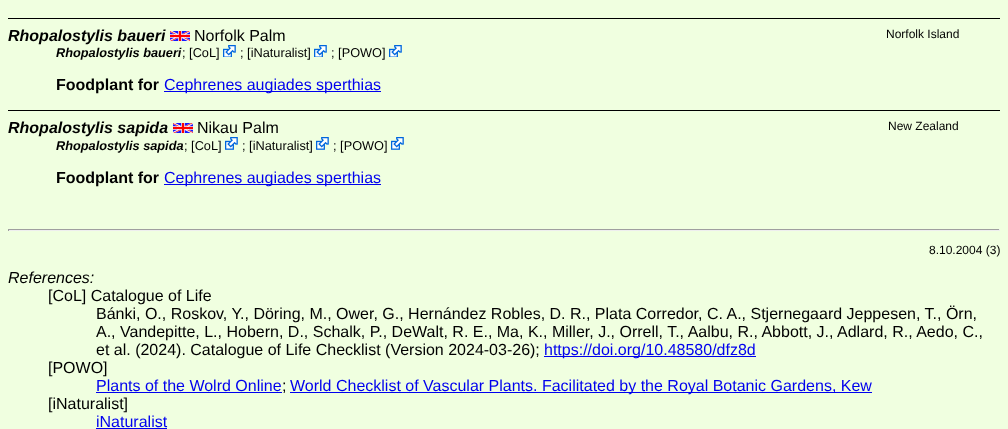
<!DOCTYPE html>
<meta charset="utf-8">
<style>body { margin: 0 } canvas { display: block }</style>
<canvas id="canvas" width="1008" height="429"></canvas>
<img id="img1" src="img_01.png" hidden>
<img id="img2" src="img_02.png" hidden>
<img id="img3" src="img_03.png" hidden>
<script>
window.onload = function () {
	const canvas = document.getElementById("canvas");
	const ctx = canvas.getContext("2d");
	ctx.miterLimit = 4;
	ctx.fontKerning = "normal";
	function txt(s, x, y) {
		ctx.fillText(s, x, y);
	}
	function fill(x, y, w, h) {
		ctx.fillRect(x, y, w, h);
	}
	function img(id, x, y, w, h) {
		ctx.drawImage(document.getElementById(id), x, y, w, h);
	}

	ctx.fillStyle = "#F0FFE0";
	fill(0, 0, 1008, 429);
	ctx.fillStyle = "#000000";
	fill(8, 18, 992, 1);
	img("img1", 170, 31, 20, 10);
	img("img2", 223, 45, 13, 12);
	img("img2", 314, 45, 13, 12);
	img("img2", 389, 45, 13, 12);
	ctx.fillStyle = "#0000EE";
	fill(164, 91, 217, 1);
	ctx.fillStyle = "#000000";
	fill(8, 110, 992, 1);
	img("img1", 173, 123, 20, 10);
	img("img3", 225, 137, 13, 13);
	img("img3", 316, 137, 13, 13);
	img("img3", 391, 137, 13, 13);
	ctx.fillStyle = "#0000EE";
	fill(164, 184, 217, 1);
	ctx.fillStyle = "#9F9F9F";
	fill(8, 229, 992, 1);
	ctx.fillStyle = "#EEEEEE";
	fill(999, 229, 1, 2);
	fill(8, 230, 992, 1);
	ctx.fillStyle = "#9F9F9F";
	fill(8, 229, 1, 2);
	ctx.fillStyle = "#0000EE";
	fill(544, 356, 212, 1);
	fill(96, 392, 186, 1);
	fill(290, 392, 582, 1);
	fill(96, 428, 71, 1);
	ctx.font = "italic bold 16px Liberation Sans";
	ctx.fillStyle = "#000000";
	txt("Rhopalostylis baueri", 8, 41);
	ctx.font = "16px Liberation Sans";
	txt("Norfolk Palm", 194, 41);
	ctx.font = "12px Liberation Sans";
	txt("Norfolk Island", 886, 38);
	ctx.font = "italic bold 12.75px Liberation Sans";
	txt("Rhopalostylis baueri", 56, 57);
	ctx.font = "12.75px Liberation Sans";
	txt("; [CoL]", 182, 57);
	txt("; [iNaturalist]", 240, 57);
	txt("; [POWO]", 331, 57);
	ctx.font = "bold 16px Liberation Sans";
	txt("Foodplant for", 56, 90);
	ctx.font = "16px Liberation Sans";
	ctx.fillStyle = "#0000EE";
	txt("Cephrenes augiades sperthias", 164, 90);
	ctx.font = "italic bold 16px Liberation Sans";
	ctx.fillStyle = "#000000";
	txt("Rhopalostylis sapida", 8, 133);
	ctx.font = "16px Liberation Sans";
	txt("Nikau Palm", 197, 133);
	ctx.font = "12px Liberation Sans";
	txt("New Zealand", 888, 130);
	ctx.font = "italic bold 12.75px Liberation Sans";
	txt("Rhopalostylis sapida", 56, 150);
	ctx.font = "12.75px Liberation Sans";
	txt("; [CoL]", 184, 150);
	txt("; [iNaturalist]", 242, 150);
	txt("; [POWO]", 333, 150);
	ctx.font = "bold 16px Liberation Sans";
	txt("Foodplant for", 56, 183);
	ctx.font = "16px Liberation Sans";
	ctx.fillStyle = "#0000EE";
	txt("Cephrenes augiades sperthias", 164, 183);
	ctx.font = "12px Liberation Sans";
	ctx.fillStyle = "#000000";
	txt("8.10.2004 (3)", 929, 254);
	ctx.font = "italic 16px Liberation Sans";
	txt("References:", 8, 283);
	ctx.font = "16px Liberation Sans";
	txt("[CoL] Catalogue of Life", 48, 301);
	txt("Bánki, O., Roskov, Y., Döring, M., Ower, G., Hernández Robles, D. R., Plata Corredor, C. A., Stjernegaard Jeppesen, T., Örn,", 96, 319);
	txt("A., Vandepitte, L., Hobern, D., Schalk, P., DeWalt, R. E., Ma, K., Miller, J., Orrell, T., Aalbu, R., Abbott, J., Adlard, R., Aedo, C.,", 96, 337);
	txt("et al. (2024). Catalogue of Life Checklist (Version 2024-03-26);", 96, 355);
	ctx.fillStyle = "#0000EE";
	txt("https://doi.org/10.48580/dfz8d", 544, 355);
	ctx.fillStyle = "#000000";
	txt("[POWO]", 48, 373);
	ctx.fillStyle = "#0000EE";
	txt("Plants of the Wolrd Online", 96, 391);
	ctx.fillStyle = "#000000";
	txt(";", 282, 391);
	ctx.fillStyle = "#0000EE";
	txt("World Checklist of Vascular Plants. Facilitated by the Royal Botanic Gardens, Kew", 290, 391);
	ctx.fillStyle = "#000000";
	txt("[iNaturalist]", 48, 409);
	ctx.fillStyle = "#0000EE";
	txt("iNaturalist", 96, 427);
};
</script>
